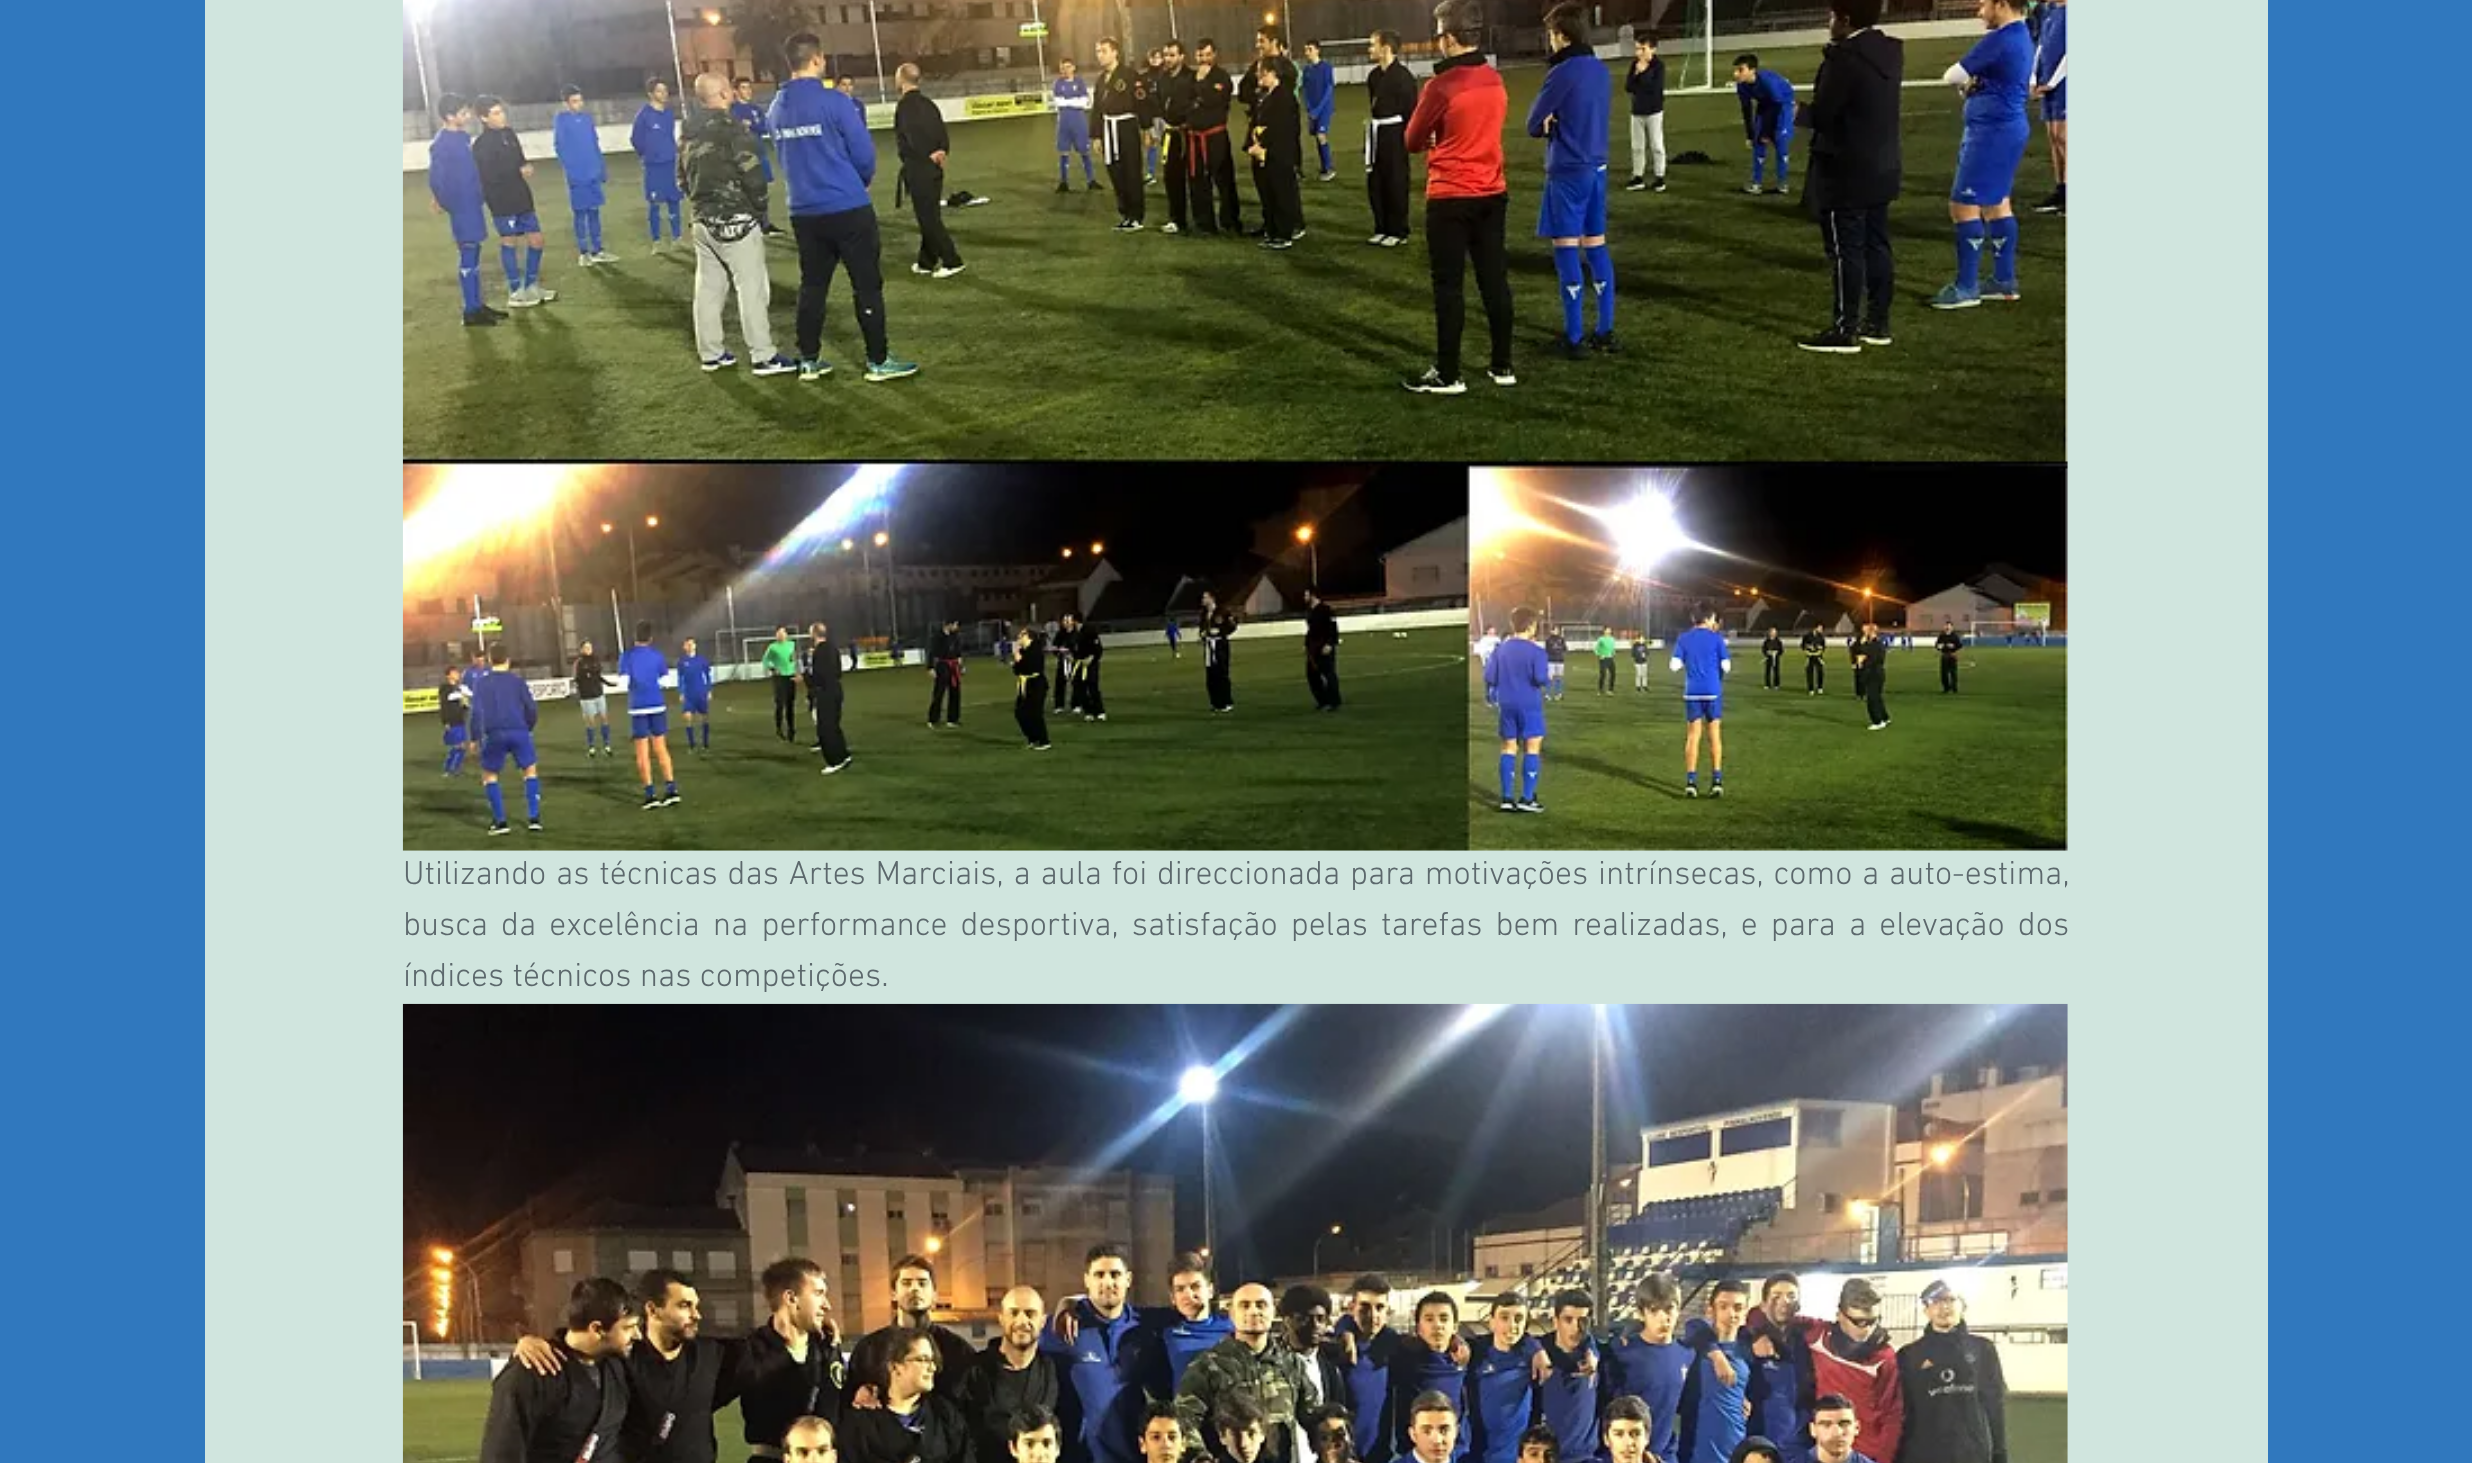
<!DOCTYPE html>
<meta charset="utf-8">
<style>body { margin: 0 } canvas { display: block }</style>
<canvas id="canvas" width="2472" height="1463"></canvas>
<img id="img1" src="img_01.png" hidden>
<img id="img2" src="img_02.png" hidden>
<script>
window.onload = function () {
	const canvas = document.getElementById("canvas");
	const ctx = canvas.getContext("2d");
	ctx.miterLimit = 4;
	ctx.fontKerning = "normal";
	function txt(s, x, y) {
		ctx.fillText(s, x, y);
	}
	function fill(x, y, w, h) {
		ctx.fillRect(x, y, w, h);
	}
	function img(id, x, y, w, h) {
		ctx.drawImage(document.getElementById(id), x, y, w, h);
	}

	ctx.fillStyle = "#3078BE";
	fill(0, 0, 2472, 1463);
	ctx.fillStyle = "#D0E5DE";
	fill(205, 0, 2063, 1463);
	img("img1", 402, 0, 1666, 851);
	img("img2", 402, 1003, 1666, 460);
	ctx.wordSpacing = "1.4px";
	ctx.font = "300 33.75px 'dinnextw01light'";
	ctx.fillStyle = "#5C686C";
	txt("Utilizando as técnicas das Artes Marciais, a aula foi direccionada para motivações intrínsecas, como a auto-estima,", 403, 884);
	ctx.wordSpacing = "4.75px";
	txt("busca da excelência na performance desportiva, satisfação pelas tarefas bem realizadas, e para a elevação dos", 403, 935);
	ctx.wordSpacing = "0px";
	txt("índices técnicos nas competições.", 403, 986);
};
</script>
